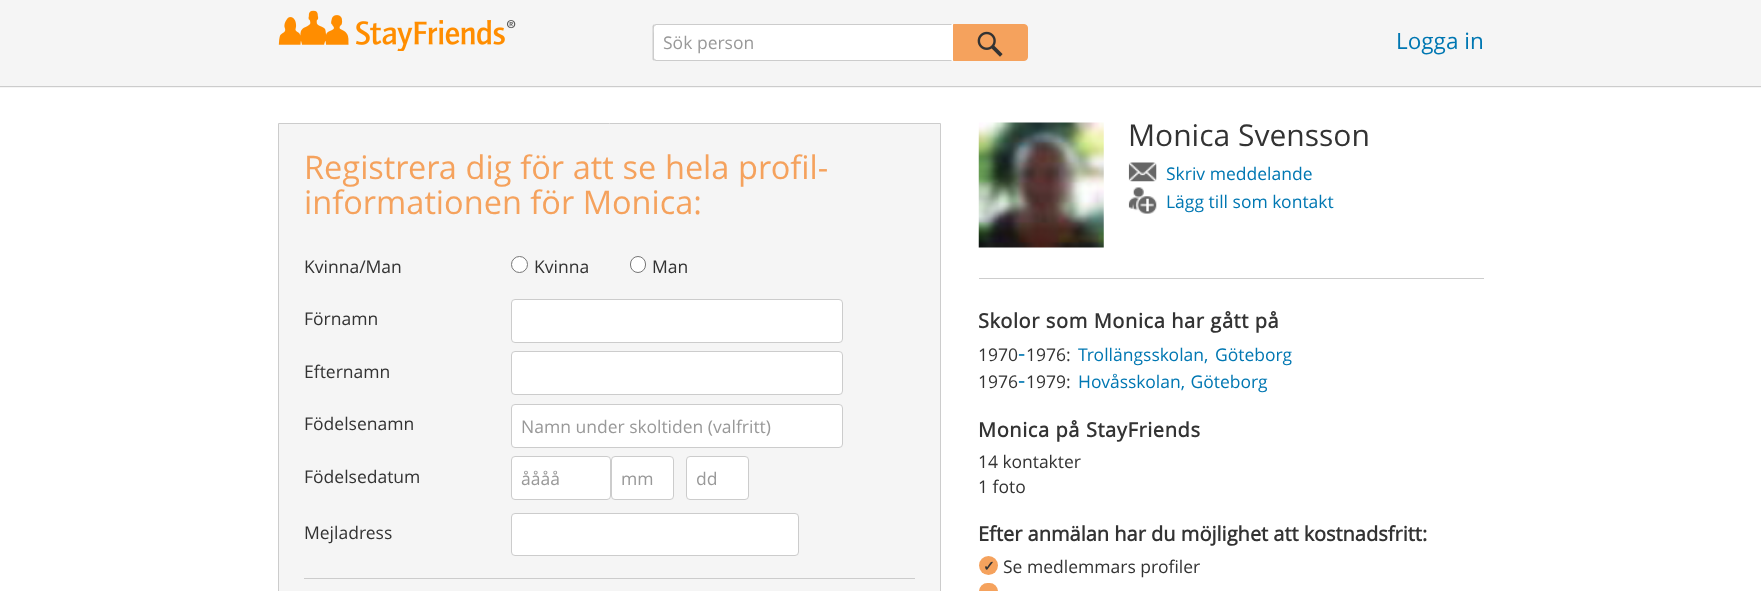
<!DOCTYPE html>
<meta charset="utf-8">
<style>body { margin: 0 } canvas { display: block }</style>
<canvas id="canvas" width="1761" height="591"></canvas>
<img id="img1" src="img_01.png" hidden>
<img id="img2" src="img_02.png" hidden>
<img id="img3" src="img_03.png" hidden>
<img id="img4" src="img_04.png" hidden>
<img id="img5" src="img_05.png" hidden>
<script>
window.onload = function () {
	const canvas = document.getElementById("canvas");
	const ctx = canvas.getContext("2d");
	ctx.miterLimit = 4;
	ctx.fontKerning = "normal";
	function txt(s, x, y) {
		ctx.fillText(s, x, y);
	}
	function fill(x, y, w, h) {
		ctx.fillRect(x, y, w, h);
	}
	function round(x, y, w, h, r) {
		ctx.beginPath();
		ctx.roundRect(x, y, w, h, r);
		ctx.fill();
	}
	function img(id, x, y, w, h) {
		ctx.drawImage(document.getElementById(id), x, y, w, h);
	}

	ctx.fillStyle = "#FFFFFF";
	fill(0, 0, 1761, 591);
	ctx.fillStyle = "#F5F5F5";
	fill(0, 0, 1761, 88);
	ctx.fillStyle = "#CCCCCC";
	fill(0, 86, 1761, 1);
	img("img1", 278, 10, 238, 41);
	ctx.fillStyle = "#FFFFFF";
	ctx.beginPath();
	ctx.roundRect(653, 24, 300, 37, [4, 0, 0, 4]);
	ctx.fill();
	ctx.fillStyle = "#CCCCCC";
	ctx.beginPath();
	ctx.moveTo(656, 24);
	ctx.lineTo(653, 25);
	ctx.lineTo(655, 26);
	ctx.lineTo(656, 25);
	ctx.lineTo(951, 25);
	ctx.lineTo(952, 24);
	ctx.closePath();
	ctx.fill();
	ctx.beginPath();
	ctx.moveTo(952, 61);
	ctx.lineTo(656, 61);
	ctx.lineTo(653, 60);
	ctx.lineTo(655, 59);
	ctx.lineTo(656, 60);
	ctx.lineTo(951, 60);
	ctx.closePath();
	ctx.fill();
	ctx.beginPath();
	ctx.moveTo(652.5, 26);
	ctx.lineTo(653.5, 24.5);
	ctx.lineTo(654.5, 26);
	ctx.bezierCurveTo(653.5, 27.5, 654, 32, 654, 33);
	ctx.lineTo(654, 58);
	ctx.lineTo(654.5, 59);
	ctx.lineTo(653.5, 60.5);
	ctx.lineTo(652.5, 59.5);
	ctx.closePath();
	ctx.fill();
	ctx.fillStyle = "#F5A25D";
	ctx.beginPath();
	ctx.roundRect(953.5, 24.5, 74, 36, [0, 3.5, 3.5, 0]);
	ctx.fill();
	ctx.strokeStyle = "#F5A25D";
	ctx.stroke();
	img("img2", 977, 31, 26, 26);
	ctx.fillStyle = "#F5F5F5";
	ctx.beginPath();
	ctx.rect(278.5, 123.5, 662, 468);
	ctx.fill();
	ctx.strokeStyle = "#CCCCCC";
	ctx.stroke();
	ctx.fillStyle = "#FFFFFF";
	ctx.beginPath();
	ctx.arc(519.5, 264.5, 8, 0, Math.PI * 2);
	ctx.fill();
	ctx.strokeStyle = "#767676";
	ctx.stroke();
	ctx.beginPath();
	ctx.roundRect(630.5, 256.5, 15, 16, 7.5);
	ctx.fill();
	ctx.stroke();
	ctx.beginPath();
	ctx.roundRect(511.5, 299.5, 331, 43, 3.5);
	ctx.fill();
	ctx.strokeStyle = "#CCCCCC";
	ctx.stroke();
	ctx.beginPath();
	ctx.roundRect(511.5, 351.5, 331, 43, 3.5);
	ctx.fill();
	ctx.stroke();
	ctx.beginPath();
	ctx.roundRect(511.5, 404.5, 331, 43, 3.5);
	ctx.fill();
	ctx.stroke();
	ctx.beginPath();
	ctx.roundRect(511.5, 456.5, 99, 43, 3.5);
	ctx.fill();
	ctx.stroke();
	ctx.beginPath();
	ctx.roundRect(611.5, 456.5, 62, 43, 3.5);
	ctx.fill();
	ctx.stroke();
	ctx.beginPath();
	ctx.roundRect(686.5, 456.5, 62, 43, 3.5);
	ctx.fill();
	ctx.stroke();
	ctx.beginPath();
	ctx.roundRect(511.5, 513.5, 287, 42, 3.5);
	ctx.fill();
	ctx.stroke();
	ctx.fillStyle = "#CCCCCC";
	fill(304, 578, 611, 1);
	ctx.fillStyle = "#CDCDCD";
	fill(979, 278, 505, 1);
	img("img3", 978, 122, 126, 126);
	img("img4", 1128, 162, 29, 20);
	img("img5", 1128, 187, 29, 27);
	ctx.fillStyle = "#F5A25D";
	ctx.beginPath();
	ctx.arc(988.5, 565.5, 9.5, 0, Math.PI * 2);
	ctx.fill();
	round(979, 583, 19, 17, 9);
	ctx.font = "17.5px Open Sans";
	ctx.fillStyle = "#999999";
	txt("Sök person", 663, 49);
	ctx.font = "22.5px Open Sans";
	ctx.fillStyle = "#0077B2";
	txt("Logga in", 1396, 49);
	ctx.wordSpacing = "0.25px";
	ctx.font = "32.5px Open Sans";
	ctx.fillStyle = "#F5A25D";
	txt("Registrera dig för att se hela profil-", 304, 179);
	ctx.wordSpacing = "0px";
	txt("informationen för Monica:", 304, 214);
	ctx.font = "17.5px Open Sans";
	ctx.fillStyle = "#333333";
	txt("Kvinna/Man", 304, 273);
	txt("Kvinna", 534, 273);
	txt("Man", 652, 273);
	txt("Förnamn", 304, 325);
	txt("Efternamn", 304, 378);
	txt("Födelsenamn", 304, 430);
	ctx.fillStyle = "#999999";
	txt("Namn under skoltiden (valfritt)", 521, 433);
	ctx.fillStyle = "#333333";
	txt("Födelsedatum", 304, 483);
	ctx.fillStyle = "#999999";
	txt("åååå", 521, 485);
	txt("mm", 621, 485);
	txt("dd", 696, 485);
	ctx.fillStyle = "#333333";
	txt("Mejladress", 304, 539);
	ctx.font = "30px Open Sans";
	txt("Monica Svensson", 1128, 146);
	ctx.font = "17.5px Open Sans";
	ctx.fillStyle = "#0077B2";
	txt("Skriv meddelande", 1166, 180);
	txt("Lägg till som kontakt", 1166, 208);
	ctx.letterSpacing = "0.6px";
	ctx.font = "bold 20px Open Sans";
	ctx.fillStyle = "#333333";
	txt("Skolor som Monica har gått på", 978, 328);
	ctx.letterSpacing = "0px";
	ctx.font = "17.5px Open Sans";
	txt("1970", 978, 361);
	ctx.font = "22.5px Open Sans";
	ctx.fillStyle = "#0077B2";
	txt("-", 1018, 361);
	ctx.font = "17.5px Open Sans";
	ctx.fillStyle = "#333333";
	txt("1976:", 1026, 361);
	ctx.wordSpacing = "2px";
	ctx.fillStyle = "#0077B2";
	txt("Trollängsskolan, Göteborg", 1078, 361);
	ctx.wordSpacing = "0px";
	ctx.fillStyle = "#333333";
	txt("1976", 978, 388);
	ctx.font = "22.5px Open Sans";
	ctx.fillStyle = "#0077B2";
	txt("-", 1018, 388);
	ctx.font = "17.5px Open Sans";
	ctx.fillStyle = "#333333";
	txt("1979:", 1026, 388);
	ctx.wordSpacing = "1px";
	ctx.fillStyle = "#0077B2";
	txt("Hovåsskolan, Göteborg", 1078, 388);
	ctx.letterSpacing = "0.6px";
	ctx.wordSpacing = "0px";
	ctx.font = "bold 20px Open Sans";
	ctx.fillStyle = "#333333";
	txt("Monica på StayFriends", 978, 437);
	ctx.letterSpacing = "0px";
	ctx.font = "17.5px Open Sans";
	txt("14 kontakter", 978, 468);
	txt("1 foto", 978, 493);
	ctx.font = "bold 20px Open Sans";
	txt("Efter anmälan har du möjlighet att kostnadsfritt:", 978, 541);
	ctx.font = "bold 14px DejaVu Sans";
	txt("✓", 983, 571);
	ctx.font = "17.5px Open Sans";
	txt("Se medlemmars profiler", 1003, 573);
};
</script>
